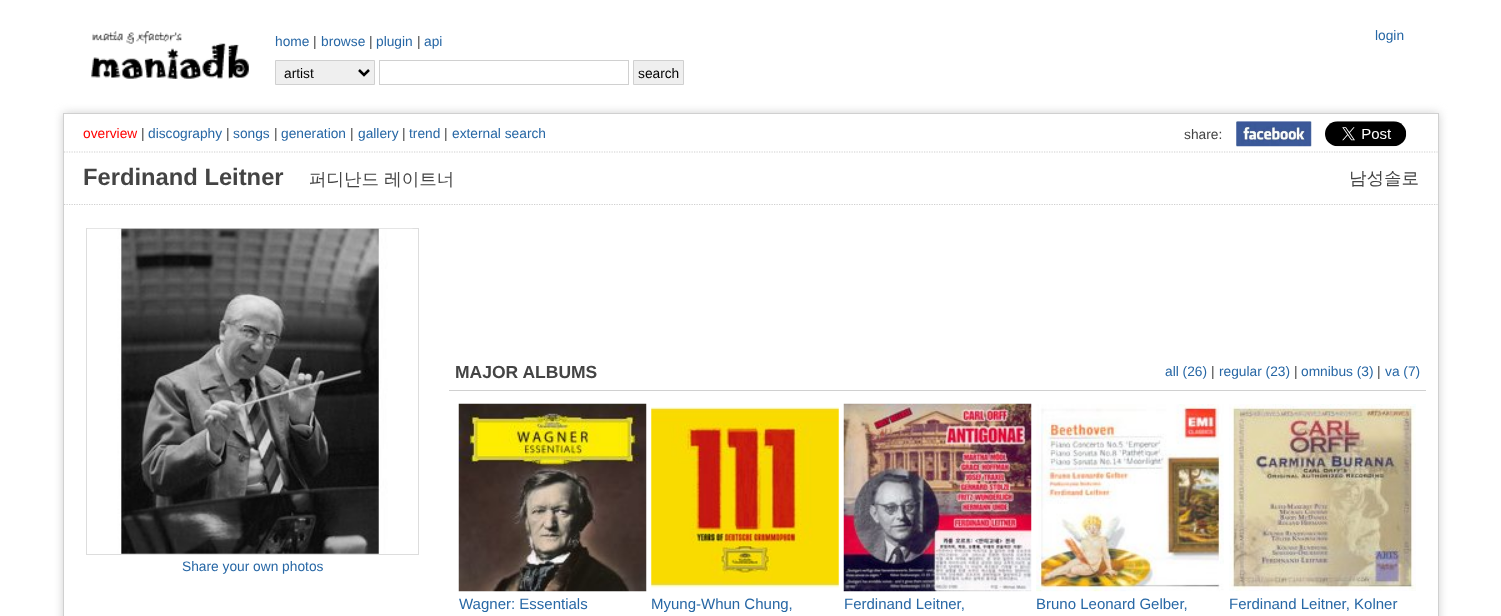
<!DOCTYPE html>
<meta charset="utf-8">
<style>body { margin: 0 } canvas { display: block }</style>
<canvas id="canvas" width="1501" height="616"></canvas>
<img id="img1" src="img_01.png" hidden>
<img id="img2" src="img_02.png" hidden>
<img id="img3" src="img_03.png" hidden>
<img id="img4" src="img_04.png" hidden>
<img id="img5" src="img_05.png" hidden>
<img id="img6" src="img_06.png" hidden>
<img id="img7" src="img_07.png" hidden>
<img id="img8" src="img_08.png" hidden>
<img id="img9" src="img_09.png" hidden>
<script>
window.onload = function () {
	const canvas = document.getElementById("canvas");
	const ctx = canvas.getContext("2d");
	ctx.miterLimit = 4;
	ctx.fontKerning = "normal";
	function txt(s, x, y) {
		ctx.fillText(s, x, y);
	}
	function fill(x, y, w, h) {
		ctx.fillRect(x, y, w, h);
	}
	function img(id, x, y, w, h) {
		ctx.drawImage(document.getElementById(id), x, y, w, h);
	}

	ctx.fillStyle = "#FFFFFF";
	fill(0, 0, 1501, 616);
	img("img1", 91, 31, 158, 48);
	ctx.fillStyle = "#EFEFEF";
	ctx.beginPath();
	ctx.rect(275.5, 60.5, 99, 24);
	ctx.fill();
	ctx.strokeStyle = "#D0D0D0";
	ctx.stroke();
	ctx.beginPath();
	ctx.moveTo(359, 70);
	ctx.lineTo(364, 75);
	ctx.lineTo(369, 70);
	ctx.strokeStyle = "#000000";
	ctx.lineWidth = 2.5;
	ctx.stroke();
	ctx.strokeStyle = "#D0D0D0";
	ctx.lineWidth = 1;
	ctx.strokeRect(379.5, 60.5, 249, 24);
	ctx.beginPath();
	ctx.rect(633.5, 60.5, 50, 24);
	ctx.fill();
	ctx.stroke();
	ctx.save();
	ctx.beginPath();
	ctx.moveTo(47, 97);
	ctx.lineTo(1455, 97);
	ctx.lineTo(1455, 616);
	ctx.lineTo(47, 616);
	ctx.closePath();
	ctx.moveTo(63, 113);
	ctx.lineTo(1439, 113);
	ctx.lineTo(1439, 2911);
	ctx.lineTo(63, 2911);
	ctx.closePath();
	ctx.clip("evenodd");
	ctx.fillStyle = "#D0D0D0";
	ctx.filter = "blur(5px)";
	ctx.beginPath();
	ctx.rect(63, 113, 1376, 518);
	ctx.fill();
	ctx.filter = "none";
	ctx.restore();
	ctx.strokeRect(63.5, 113.5, 1375, 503);
	ctx.beginPath();
	ctx.moveTo(64, 152);
	ctx.lineTo(1437.5, 152);
	ctx.lineWidth = 1.2;
	ctx.setLineDash([1.25, 1.25]);
	ctx.stroke();
	img("img2", 1236, 121, 76, 26);
	img("img3", 1325, 121, 82, 26);
	ctx.beginPath();
	ctx.moveTo(64, 204.5);
	ctx.lineTo(1437.5, 204.5);
	ctx.stroke();
	ctx.strokeStyle = "#DDDDDD";
	ctx.lineWidth = 1;
	ctx.setLineDash([]);
	ctx.strokeRect(86.5, 228.5, 332, 326);
	img("img4", 87, 228, 326, 326);
	ctx.fillStyle = "#D0D0D0";
	fill(449, 390, 977, 1);
	img("img5", 458, 403, 189, 189);
	img("img6", 651, 407, 188, 181);
	img("img7", 843, 403, 189, 189);
	img("img8", 1036, 404, 188, 188);
	img("img9", 1229, 404, 187, 187);
	ctx.font = "13.75px Liberation Sans";
	ctx.fillStyle = "#2767A5";
	txt("home", 275, 46);
	ctx.fillStyle = "#444444";
	txt("|", 313, 46);
	ctx.fillStyle = "#2767A5";
	txt("browse", 321, 46);
	ctx.fillStyle = "#444444";
	txt("|", 369, 46);
	ctx.fillStyle = "#2767A5";
	txt("plugin", 376, 46);
	ctx.fillStyle = "#444444";
	txt("|", 417, 46);
	ctx.fillStyle = "#2767A5";
	txt("api", 424, 46);
	txt("login", 1375, 40);
	ctx.fillStyle = "#000000";
	txt("artist", 284, 78);
	txt("search", 638, 78);
	ctx.fillStyle = "#FF0000";
	txt("overview", 83, 138);
	ctx.fillStyle = "#444444";
	txt("|", 141, 138);
	ctx.fillStyle = "#2767A5";
	txt("discography", 148, 138);
	ctx.fillStyle = "#444444";
	txt("|", 226, 138);
	ctx.fillStyle = "#2767A5";
	txt("songs", 233, 138);
	ctx.fillStyle = "#444444";
	txt("|", 274, 138);
	ctx.fillStyle = "#2767A5";
	txt("generation", 281, 138);
	ctx.fillStyle = "#444444";
	txt("|", 350, 138);
	ctx.fillStyle = "#2767A5";
	txt("gallery", 358, 138);
	ctx.fillStyle = "#444444";
	txt("|", 402, 138);
	ctx.fillStyle = "#2767A5";
	txt("trend", 409, 138);
	ctx.fillStyle = "#444444";
	txt("|", 444, 138);
	ctx.fillStyle = "#2767A5";
	txt("external search", 452, 138);
	ctx.fillStyle = "#444444";
	txt("share:", 1184, 139);
	ctx.font = "bold 23.75px Liberation Sans";
	txt("Ferdinand Leitner", 83, 185);
	ctx.font = "500 17.5px WenQuanYi Zen Hei";
	txt("퍼디난드 레이트너", 309, 185);
	txt("남성솔로", 1349, 184);
	ctx.font = "13.75px Liberation Sans";
	ctx.fillStyle = "#2767A5";
	txt("Share your own photos", 182, 571);
	ctx.font = "bold 17.5px Liberation Sans";
	ctx.fillStyle = "#444444";
	txt("MAJOR ALBUMS", 455, 378);
	ctx.font = "13.75px Liberation Sans";
	ctx.fillStyle = "#2767A5";
	txt("all (26)", 1165, 376);
	ctx.fillStyle = "#444444";
	txt("|", 1211, 376);
	ctx.fillStyle = "#2767A5";
	txt("regular (23)", 1219, 376);
	ctx.fillStyle = "#444444";
	txt("|", 1294, 376);
	ctx.fillStyle = "#2767A5";
	txt("omnibus (3)", 1301, 376);
	ctx.fillStyle = "#444444";
	txt("|", 1377, 376);
	ctx.fillStyle = "#2767A5";
	txt("va (7)", 1385, 376);
	ctx.font = "15px Liberation Sans";
	txt("Wagner: Essentials", 459, 609);
	txt("Myung-Whun Chung,", 651, 609);
	txt("Ferdinand Leitner,", 844, 609);
	txt("Bruno Leonard Gelber,", 1036, 609);
	txt("Ferdinand Leitner, Kolner", 1229, 609);
};
</script>
